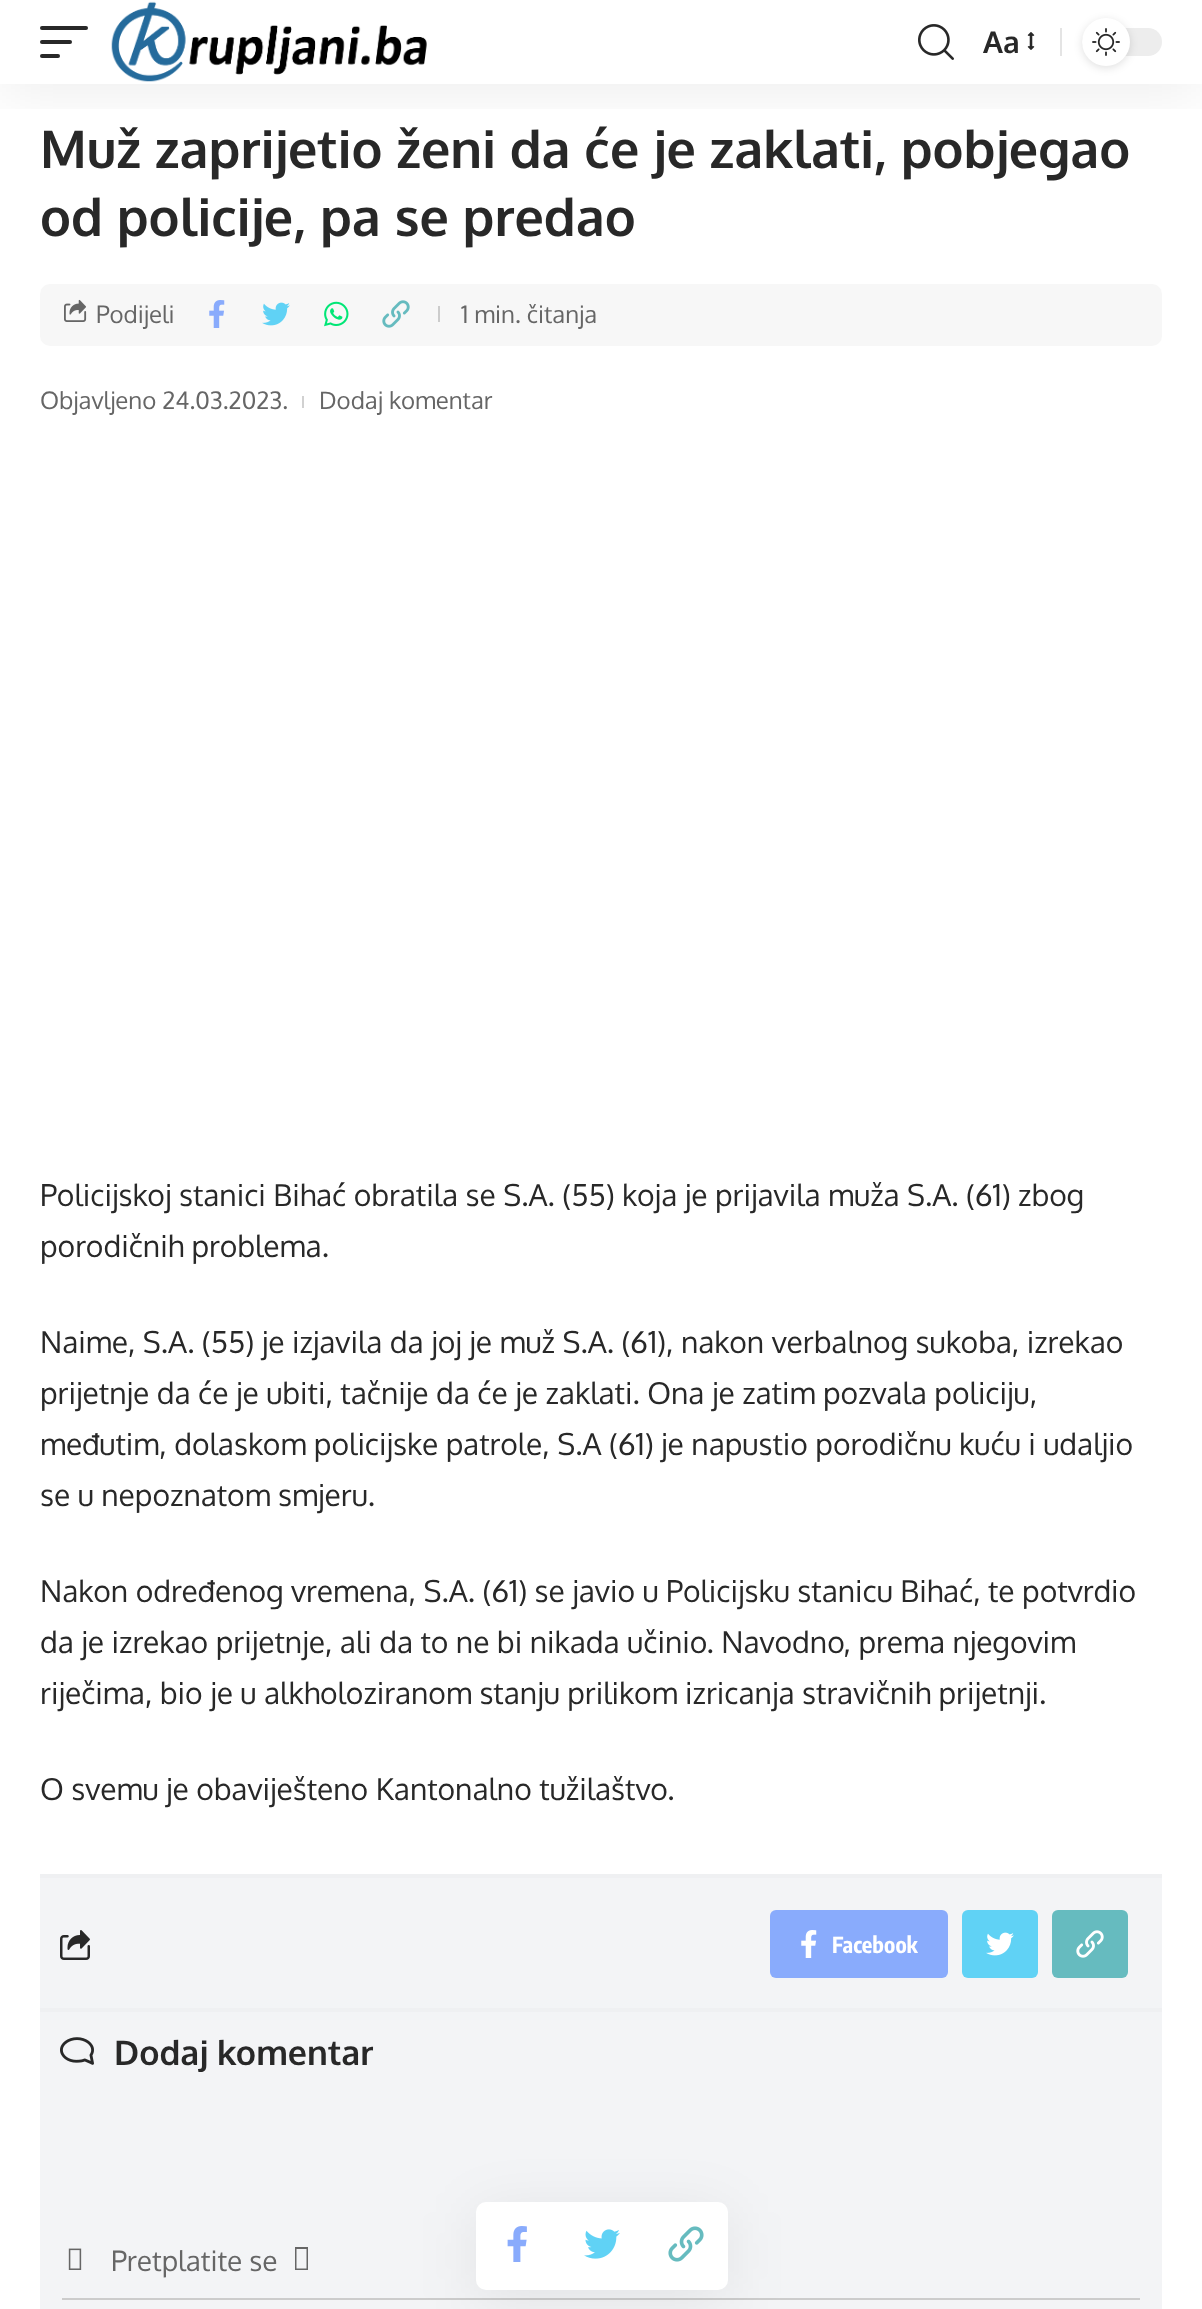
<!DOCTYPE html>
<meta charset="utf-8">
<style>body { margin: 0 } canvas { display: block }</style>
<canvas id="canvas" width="1202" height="2309"></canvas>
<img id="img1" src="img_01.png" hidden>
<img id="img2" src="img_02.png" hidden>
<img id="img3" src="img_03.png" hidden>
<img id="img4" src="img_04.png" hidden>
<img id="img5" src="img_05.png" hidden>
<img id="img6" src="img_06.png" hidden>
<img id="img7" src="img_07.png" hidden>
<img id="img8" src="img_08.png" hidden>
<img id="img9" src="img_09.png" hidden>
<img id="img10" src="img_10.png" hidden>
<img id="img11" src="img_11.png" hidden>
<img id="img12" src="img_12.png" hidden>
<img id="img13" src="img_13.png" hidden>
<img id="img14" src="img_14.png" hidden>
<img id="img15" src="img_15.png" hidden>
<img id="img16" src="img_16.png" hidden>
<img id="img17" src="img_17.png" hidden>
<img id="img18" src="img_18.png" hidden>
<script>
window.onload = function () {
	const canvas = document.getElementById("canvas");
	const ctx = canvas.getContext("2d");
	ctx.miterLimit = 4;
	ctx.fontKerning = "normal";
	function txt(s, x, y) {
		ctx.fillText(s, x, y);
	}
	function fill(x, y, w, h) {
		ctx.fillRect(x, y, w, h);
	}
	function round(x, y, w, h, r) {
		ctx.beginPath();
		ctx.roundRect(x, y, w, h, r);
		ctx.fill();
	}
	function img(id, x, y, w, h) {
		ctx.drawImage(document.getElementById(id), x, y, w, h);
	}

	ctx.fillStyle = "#FFFFFF";
	fill(0, 0, 1202, 2309);
	ctx.save();
	ctx.beginPath();
	ctx.rect(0, 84, 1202, 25);
	ctx.clip();
	ctx.fillStyle = "rgba(0, 0, 0, 0.07)";
	ctx.filter = "blur(30px)";
	ctx.beginPath();
	ctx.rect(0, 8, 1202, 84);
	ctx.fill();
	ctx.filter = "none";
	ctx.restore();
	ctx.fillStyle = "#282828";
	round(40, 26, 48, 4, 2);
	round(40, 40, 32, 4, 2);
	round(40, 54, 20, 4, 2);
	img("img1", 111, 1, 316, 81);
	img("img2", 918, 24, 36, 36);
	img("img3", 1027, 32, 8, 18);
	ctx.fillStyle = "#E4E4E4";
	fill(1060, 28, 2, 28);
	ctx.fillStyle = "#EDEDED";
	round(1082, 28, 80, 28, 14);
	ctx.fillStyle = "rgba(0, 0, 0, 0.12)";
	ctx.filter = "blur(4px)";
	ctx.beginPath();
	ctx.roundRect(1082, 20, 48, 48, 24);
	ctx.fill();
	ctx.filter = "none";
	ctx.fillStyle = "#FFFFFF";
	ctx.beginPath();
	ctx.arc(1106, 42, 24, 0, Math.PI * 2);
	ctx.fill();
	img("img4", 1092, 28, 28, 28);
	ctx.fillStyle = "#F7F7F7";
	round(40, 284, 1122, 62, 10);
	img("img5", 64, 299, 23, 23);
	img("img6", 209, 300, 16, 28);
	img("img7", 262, 302, 28, 24);
	img("img8", 324, 301, 25, 26);
	img("img9", 382, 300, 28, 28);
	ctx.fillStyle = "#CCCCCC";
	fill(438, 306, 2, 16);
	ctx.fillStyle = "#D1D1D1";
	fill(302, 396, 2, 12);
	ctx.fillStyle = "#F3F4F6";
	fill(40, 2012, 1122, 297);
	ctx.fillStyle = "#CCCCCC";
	fill(62, 2298, 1078, 2);
	ctx.fillStyle = "rgba(0, 0, 0, 0.07)";
	ctx.filter = "blur(30px)";
	ctx.beginPath();
	ctx.roundRect(476, 2212, 252, 88, 10);
	ctx.fill();
	ctx.filter = "none";
	ctx.fillStyle = "#FFFFFF";
	round(476, 2202, 252, 88, 10);
	img("img10", 507, 2226, 20, 36);
	img("img11", 584, 2229, 36, 30);
	img("img12", 668, 2226, 36, 36);
	ctx.fillStyle = "#F3F4F6";
	fill(40, 1878, 1122, 130);
	ctx.fillStyle = "#EFF0F2";
	fill(40, 1874, 1122, 4);
	img("img13", 60, 1930, 30, 30);
	ctx.fillStyle = "#89ABFC";
	round(770, 1910, 178, 68, 6);
	img("img14", 801, 1930, 16, 28);
	ctx.fillStyle = "#60D2F5";
	round(962, 1910, 76, 68, 6);
	img("img15", 986, 1932, 28, 24);
	ctx.fillStyle = "#66BBBF";
	round(1052, 1910, 76, 68, 6);
	img("img16", 1076, 1930, 28, 28);
	ctx.fillStyle = "#EFF0F2";
	fill(40, 2008, 1122, 4);
	img("img17", 60, 2037, 34, 28);
	img("img18", 68, 2248, 14, 22);
	ctx.fillStyle = "#666666";
	ctx.beginPath();
	ctx.moveTo(295, 2270);
	ctx.lineTo(295, 2247);
	ctx.lineTo(308, 2247);
	ctx.lineTo(308, 2270);
	ctx.closePath();
	ctx.moveTo(296.5, 2268.5);
	ctx.lineTo(306.5, 2268.5);
	ctx.lineTo(306.5, 2249);
	ctx.lineTo(296.5, 2249);
	ctx.closePath();
	ctx.fill();
	ctx.font = "bold 30px Oxygen";
	ctx.fillStyle = "#282828";
	txt("Aa", 983, 53);
	ctx.font = "bold 52px Oxygen";
	txt("Muž zaprijetio ženi da će je zaklati, pobjegao", 40, 168);
	txt("od policije, pa se predao", 40, 236);
	ctx.font = "24px Oxygen";
	ctx.fillStyle = "#666666";
	txt("Podijeli", 96, 323);
	txt("1 min. čitanja", 461, 323);
	txt("Objavljeno 24.03.2023.", 40, 409);
	txt("Dodaj komentar", 319, 409);
	ctx.font = "30px Oxygen";
	ctx.fillStyle = "#282828";
	txt("Policijskoj stanici Bihać obratila se S.A. (55) koja je prijavila muža S.A. (61) zbog", 40, 1206);
	txt("porodičnih problema.", 40, 1257);
	txt("Naime, S.A. (55) je izjavila da joj je muž S.A. (61), nakon verbalnog sukoba, izrekao", 40, 1353);
	txt("prijetnje da će je ubiti, tačnije da će je zaklati. Ona je zatim pozvala policiju,", 40, 1404);
	txt("međutim, dolaskom policijske patrole, S.A (61) je napustio porodičnu kuću i udaljio", 40, 1455);
	txt("se u nepoznatom smjeru.", 40, 1506);
	txt("Nakon određenog vremena, S.A. (61) se javio u Policijsku stanicu Bihać, te potvrdio", 40, 1602);
	txt("da je izrekao prijetnje, ali da to ne bi nikada učinio. Navodno, prema njegovim", 40, 1653);
	txt("riječima, bio je u alkholoziranom stanju prilikom izricanja stravičnih prijetnji.", 40, 1704);
	txt("O svemu je obaviješteno Kantonalno tužilaštvo.", 40, 1800);
	ctx.font = "bold 22px Encode Sans Condensed";
	ctx.fillStyle = "#FFFFFF";
	txt("Facebook", 832, 1953);
	ctx.font = "bold 34px Oxygen";
	ctx.fillStyle = "#282828";
	txt("Dodaj komentar", 114, 2065);
	ctx.font = "28px Oxygen";
	ctx.fillStyle = "#666666";
	txt("Pretplatite se", 111, 2271);
};
</script>
